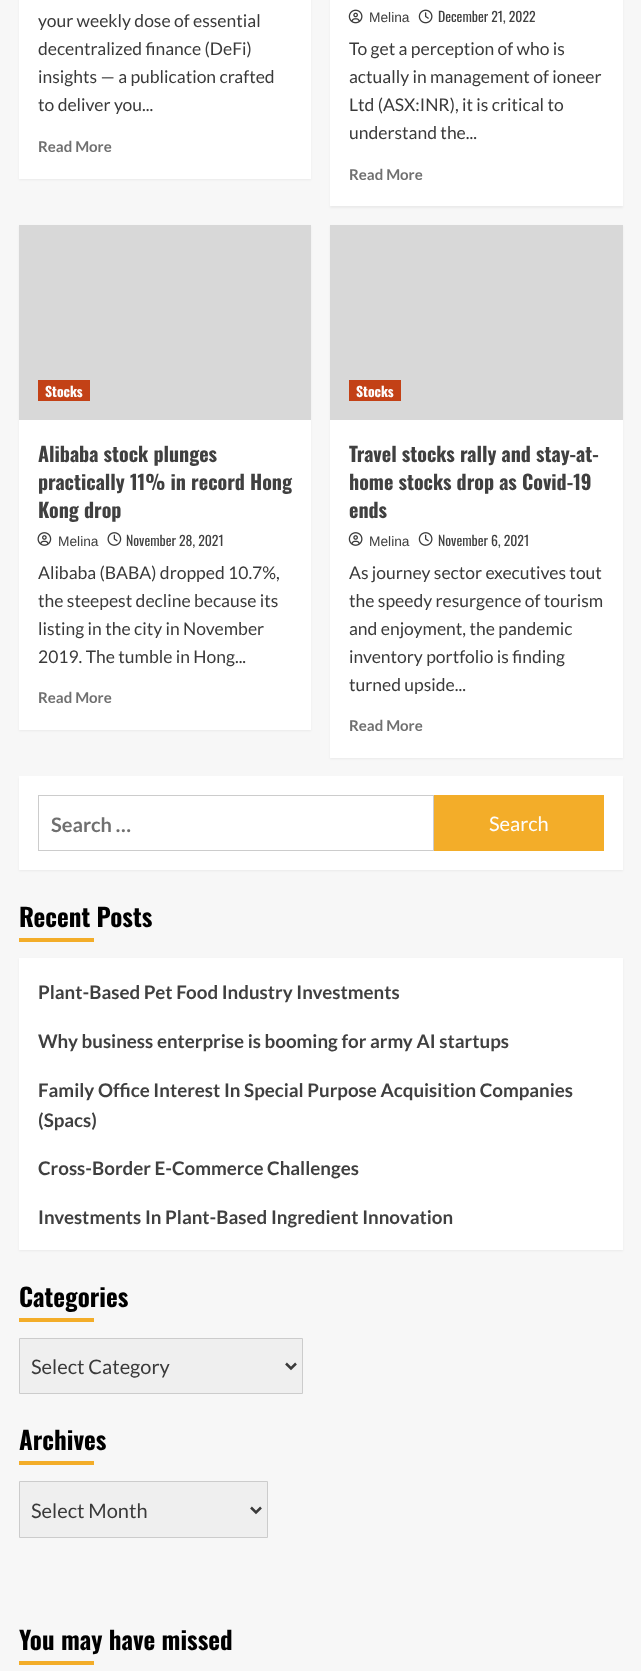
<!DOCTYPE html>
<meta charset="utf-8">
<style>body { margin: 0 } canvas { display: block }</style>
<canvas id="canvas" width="641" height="1671"></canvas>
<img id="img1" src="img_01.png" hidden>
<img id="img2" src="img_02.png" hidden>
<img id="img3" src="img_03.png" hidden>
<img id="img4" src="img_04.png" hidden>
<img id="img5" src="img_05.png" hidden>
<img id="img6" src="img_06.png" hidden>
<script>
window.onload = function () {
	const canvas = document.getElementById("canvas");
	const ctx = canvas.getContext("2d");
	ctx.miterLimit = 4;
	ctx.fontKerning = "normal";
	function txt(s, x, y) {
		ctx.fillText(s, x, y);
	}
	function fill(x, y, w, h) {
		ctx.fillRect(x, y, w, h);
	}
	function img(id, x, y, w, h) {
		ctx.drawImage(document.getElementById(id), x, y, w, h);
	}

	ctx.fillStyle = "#F7F7F7";
	fill(0, 0, 641, 1671);
	ctx.fillStyle = "rgba(0, 0, 0, 0.05)";
	ctx.filter = "blur(1px)";
	ctx.beginPath();
	ctx.rect(19, -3, 292, 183);
	ctx.fill();
	ctx.filter = "none";
	ctx.fillStyle = "#FFFFFF";
	fill(19, 0, 292, 179);
	ctx.fillStyle = "rgba(0, 0, 0, 0.05)";
	ctx.filter = "blur(1px)";
	ctx.beginPath();
	ctx.rect(330, -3, 293, 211);
	ctx.fill();
	ctx.filter = "none";
	ctx.fillStyle = "#FFFFFF";
	fill(330, 0, 293, 206);
	img("img1", 348, 9, 15, 15);
	img("img2", 418, 9, 15, 15);
	ctx.fillStyle = "rgba(0, 0, 0, 0.05)";
	ctx.filter = "blur(1px)";
	ctx.beginPath();
	ctx.rect(19, 226, 292, 505);
	ctx.fill();
	ctx.filter = "none";
	ctx.fillStyle = "#FFFFFF";
	fill(19, 420, 292, 310);
	ctx.fillStyle = "#D8D8D8";
	fill(19, 225, 292, 195);
	ctx.fillStyle = "#C34116";
	fill(38, 380, 52, 21);
	img("img3", 37, 532, 15, 14);
	img("img4", 107, 532, 15, 14);
	ctx.fillStyle = "rgba(0, 0, 0, 0.05)";
	ctx.filter = "blur(1px)";
	ctx.beginPath();
	ctx.rect(330, 226, 293, 533);
	ctx.fill();
	ctx.filter = "none";
	ctx.fillStyle = "#FFFFFF";
	fill(330, 420, 293, 338);
	ctx.fillStyle = "#D8D8D8";
	fill(330, 225, 293, 195);
	ctx.fillStyle = "#C34116";
	fill(349, 380, 52, 21);
	img("img5", 348, 532, 15, 14);
	img("img6", 418, 532, 15, 14);
	ctx.fillStyle = "rgba(0, 0, 0, 0.05)";
	ctx.filter = "blur(1px)";
	ctx.beginPath();
	ctx.rect(19, 778, 604, 93);
	ctx.fill();
	ctx.filter = "none";
	ctx.fillStyle = "#FFFFFF";
	fill(19, 776, 604, 94);
	ctx.strokeStyle = "#CCCCCC";
	ctx.strokeRect(38.5, 795.5, 395, 55);
	ctx.fillStyle = "#F3AD29";
	fill(434, 795, 170, 56);
	fill(19, 938, 75, 4);
	ctx.fillStyle = "rgba(0, 0, 0, 0.05)";
	ctx.filter = "blur(1px)";
	ctx.beginPath();
	ctx.rect(19, 959, 604, 292);
	ctx.fill();
	ctx.filter = "none";
	ctx.fillStyle = "#FFFFFF";
	fill(19, 958, 604, 292);
	ctx.fillStyle = "#F3AD29";
	fill(19, 1318, 75, 4);
	ctx.fillStyle = "#EFEFEF";
	ctx.beginPath();
	ctx.rect(19.5, 1338.5, 283, 55);
	ctx.fill();
	ctx.stroke();
	ctx.beginPath();
	ctx.moveTo(286, 1363.5);
	ctx.lineTo(291, 1368.5);
	ctx.lineTo(296, 1363.5);
	ctx.strokeStyle = "#3A3A3A";
	ctx.lineWidth = 2.5;
	ctx.stroke();
	ctx.fillStyle = "#F3AD29";
	fill(19, 1461, 75, 4);
	ctx.fillStyle = "#EFEFEF";
	ctx.beginPath();
	ctx.rect(19.5, 1481.5, 248, 56);
	ctx.fill();
	ctx.strokeStyle = "#CCCCCC";
	ctx.lineWidth = 1;
	ctx.stroke();
	ctx.beginPath();
	ctx.moveTo(251, 1507.5);
	ctx.lineTo(256, 1512.5);
	ctx.lineTo(261, 1507.5);
	ctx.strokeStyle = "#3A3A3A";
	ctx.lineWidth = 2.5;
	ctx.stroke();
	ctx.fillStyle = "#F3AD29";
	fill(19, 1661, 75, 4);
	ctx.font = "17.5px Lato";
	ctx.fillStyle = "#3A3A3A";
	txt("your weekly dose of essential", 38, 27);
	txt("decentralized finance (DeFi)", 38, 55);
	txt("insights — a publication crafted", 38, 83);
	txt("to deliver you...", 38, 111);
	ctx.font = "bold 15px Lato";
	ctx.fillStyle = "#707070";
	txt("Read More", 38, 152);
	ctx.font = "13.75px Liberation Sans";
	ctx.fillStyle = "#404040";
	txt("Melina", 369, 22);
	ctx.font = "13.75px Oswald";
	txt("December 21, 2022", 438, 22);
	ctx.font = "17.5px Lato";
	ctx.fillStyle = "#3A3A3A";
	txt("To get a perception of who is", 349, 55);
	txt("actually in management of ioneer", 349, 83);
	txt("Ltd (ASX:INR), it is critical to", 349, 111);
	txt("understand the...", 349, 139);
	ctx.font = "bold 15px Lato";
	ctx.fillStyle = "#707070";
	txt("Read More", 349, 180);
	ctx.font = "bold 13.75px Oswald";
	ctx.fillStyle = "#FDFDFD";
	txt("Stocks", 45, 397);
	ctx.font = "bold 20px Oswald";
	ctx.fillStyle = "#404040";
	txt("Alibaba stock plunges", 38, 462);
	txt("practically 11% in record Hong", 38, 490);
	txt("Kong drop", 38, 518);
	ctx.font = "13.75px Liberation Sans";
	txt("Melina", 58, 546);
	ctx.font = "13.75px Oswald";
	txt("November 28, 2021", 126, 546);
	ctx.font = "17.5px Lato";
	ctx.fillStyle = "#3A3A3A";
	txt("Alibaba (BABA) dropped 10.7%,", 38, 579);
	txt("the steepest decline because its", 38, 607);
	txt("listing in the city in November", 38, 635);
	txt("2019. The tumble in Hong...", 38, 663);
	ctx.font = "bold 15px Lato";
	ctx.fillStyle = "#707070";
	txt("Read More", 38, 703);
	ctx.font = "bold 13.75px Oswald";
	ctx.fillStyle = "#FDFDFD";
	txt("Stocks", 356, 397);
	ctx.font = "bold 20px Oswald";
	ctx.fillStyle = "#404040";
	txt("Travel stocks rally and stay-at-", 349, 462);
	txt("home stocks drop as Covid-19", 349, 490);
	txt("ends", 349, 518);
	ctx.font = "13.75px Liberation Sans";
	txt("Melina", 369, 546);
	ctx.font = "13.75px Oswald";
	txt("November 6, 2021", 438, 546);
	ctx.font = "17.5px Lato";
	ctx.fillStyle = "#3A3A3A";
	txt("As journey sector executives tout", 349, 579);
	txt("the speedy resurgence of tourism", 349, 607);
	txt("and enjoyment, the pandemic", 349, 635);
	txt("inventory portfolio is finding", 349, 663);
	txt("turned upside...", 349, 691);
	ctx.font = "bold 15px Lato";
	ctx.fillStyle = "#707070";
	txt("Read More", 349, 731);
	ctx.font = "bold 20px Lato";
	txt("Search …", 51, 832);
	ctx.font = "20px Lato";
	ctx.fillStyle = "#FDFDFD";
	txt("Search", 489, 831);
	ctx.font = "bold 25px Oswald";
	ctx.fillStyle = "#000000";
	txt("Recent Posts", 19, 927);
	ctx.font = "bold 18.75px Lato";
	ctx.fillStyle = "#404040";
	txt("Plant-Based Pet Food Industry Investments", 38, 999);
	txt("Why business enterprise is booming for army AI startups", 38, 1048);
	txt("Family Office Interest In Special Purpose Acquisition Companies", 38, 1097);
	txt("(Spacs)", 38, 1127);
	txt("Cross-Border E-Commerce Challenges", 38, 1175);
	txt("Investments In Plant-Based Ingredient Innovation", 38, 1224);
	ctx.font = "bold 25px Oswald";
	ctx.fillStyle = "#000000";
	txt("Categories", 19, 1307);
	ctx.font = "20px Lato";
	ctx.fillStyle = "#3A3A3A";
	txt("Select Category", 31, 1374);
	ctx.font = "bold 25px Oswald";
	ctx.fillStyle = "#000000";
	txt("Archives", 19, 1450);
	ctx.font = "20px Lato";
	ctx.fillStyle = "#3A3A3A";
	txt("Select Month", 31, 1518);
	ctx.font = "bold 25px Oswald";
	ctx.fillStyle = "#000000";
	txt("You may have missed", 19, 1650);
};
</script>
